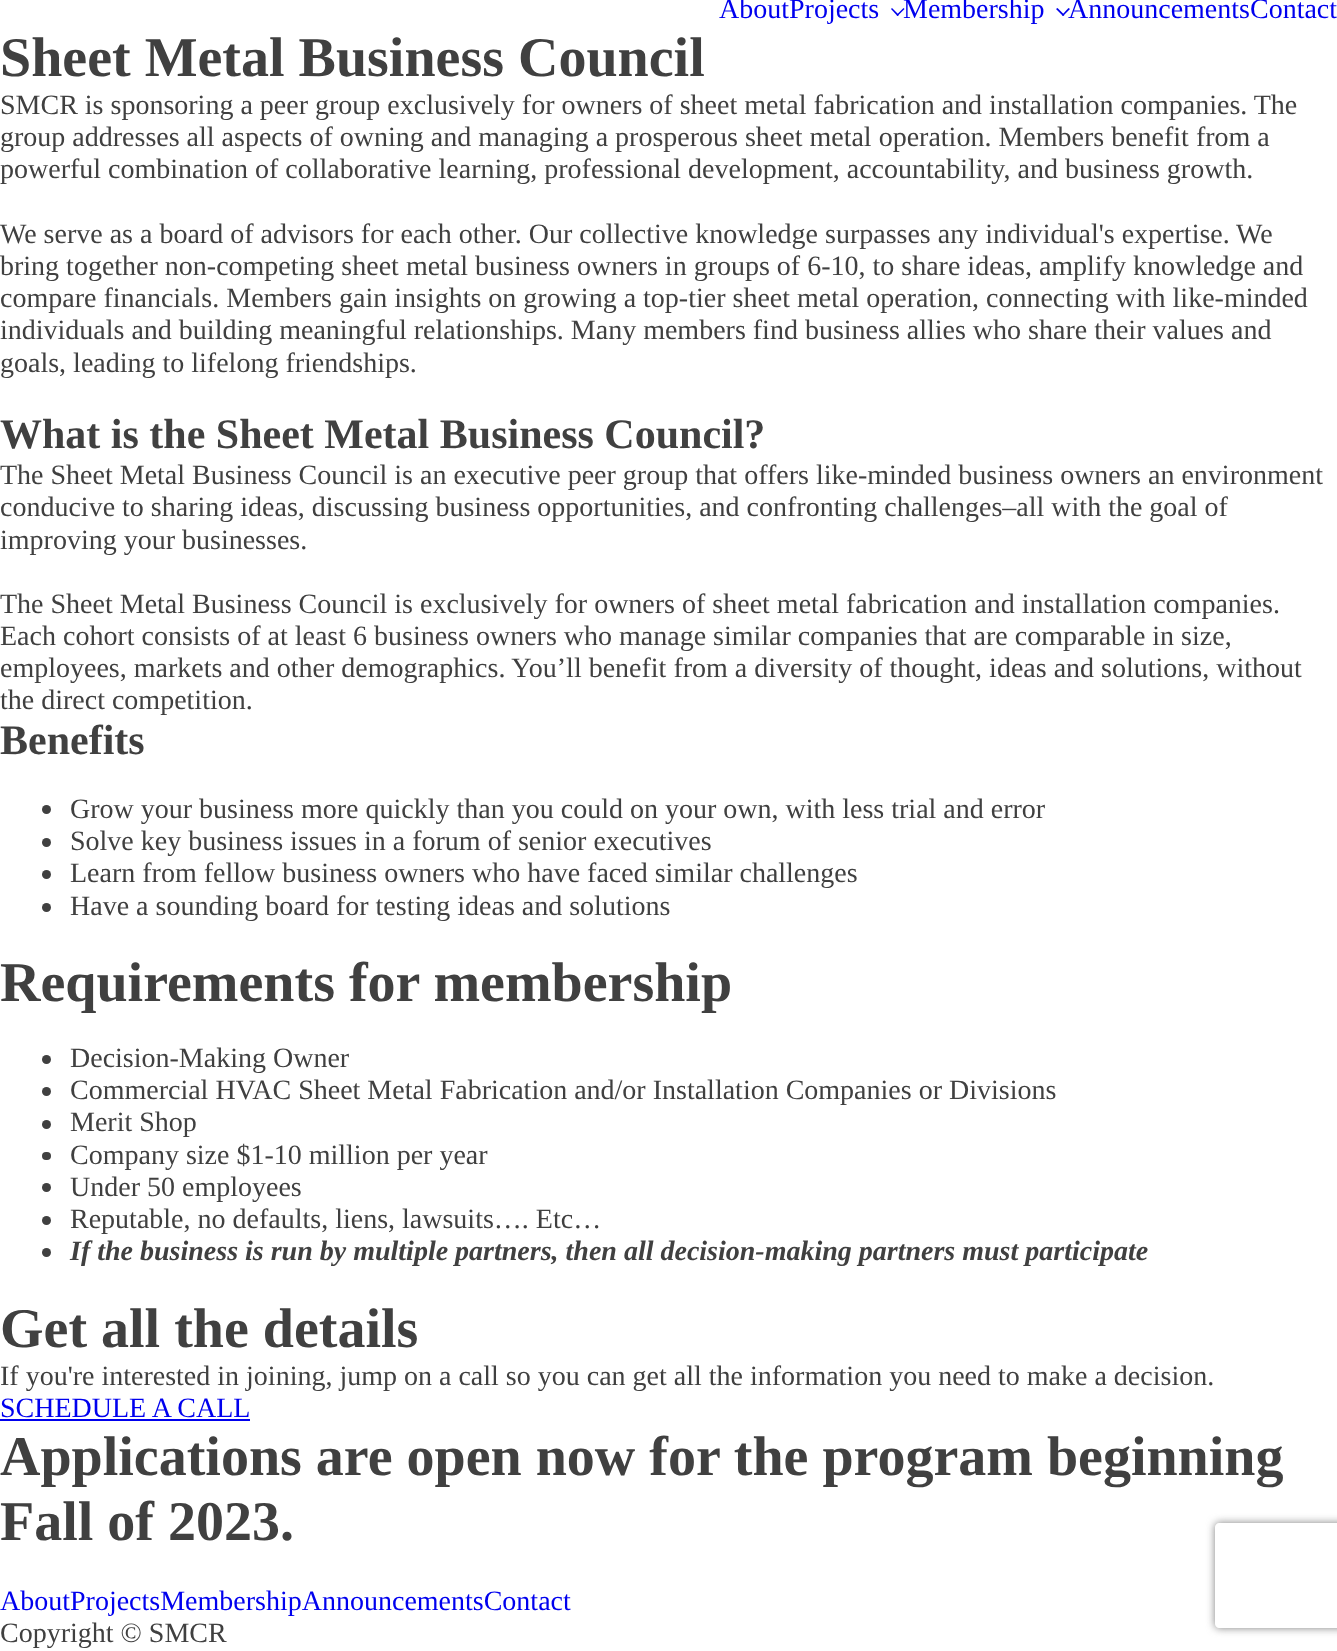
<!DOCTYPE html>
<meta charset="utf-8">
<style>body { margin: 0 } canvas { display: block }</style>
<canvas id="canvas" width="1337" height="1651"></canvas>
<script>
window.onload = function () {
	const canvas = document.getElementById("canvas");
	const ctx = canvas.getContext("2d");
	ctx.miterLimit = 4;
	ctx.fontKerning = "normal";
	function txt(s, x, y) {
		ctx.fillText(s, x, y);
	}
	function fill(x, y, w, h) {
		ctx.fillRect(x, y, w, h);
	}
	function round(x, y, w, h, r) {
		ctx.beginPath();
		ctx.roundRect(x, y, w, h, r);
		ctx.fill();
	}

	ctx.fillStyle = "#FFFFFF";
	fill(0, 0, 1337, 1651);
	ctx.fillStyle = "#0000EE";
	ctx.beginPath();
	ctx.moveTo(904.5, 9);
	ctx.lineTo(897.5, 16);
	ctx.lineTo(896.5, 15);
	ctx.lineTo(903.5, 8);
	ctx.closePath();
	ctx.fill();
	ctx.beginPath();
	ctx.moveTo(899, 15);
	ctx.lineTo(897.5, 16);
	ctx.lineTo(891, 9);
	ctx.lineTo(892, 8);
	ctx.closePath();
	ctx.fill();
	ctx.beginPath();
	ctx.moveTo(1070, 9);
	ctx.lineTo(1063, 16);
	ctx.lineTo(1062, 15);
	ctx.lineTo(1068.5, 8);
	ctx.closePath();
	ctx.fill();
	ctx.beginPath();
	ctx.moveTo(1064.5, 15);
	ctx.lineTo(1063, 16);
	ctx.lineTo(1056, 9);
	ctx.lineTo(1057.5, 8);
	ctx.closePath();
	ctx.fill();
	ctx.fillStyle = "#404040";
	ctx.beginPath();
	ctx.arc(46.5, 809.5, 4.5, 0, Math.PI * 2);
	ctx.fill();
	ctx.beginPath();
	ctx.arc(46.5, 842.5, 4.5, 0, Math.PI * 2);
	ctx.fill();
	ctx.beginPath();
	ctx.arc(46.5, 874.5, 4.5, 0, Math.PI * 2);
	ctx.fill();
	ctx.beginPath();
	ctx.arc(46.5, 907.5, 4.5, 0, Math.PI * 2);
	ctx.fill();
	ctx.beginPath();
	ctx.arc(46.5, 1059.5, 4.5, 0, Math.PI * 2);
	ctx.fill();
	ctx.beginPath();
	ctx.arc(46.5, 1091.5, 4.5, 0, Math.PI * 2);
	ctx.fill();
	ctx.beginPath();
	ctx.arc(46.5, 1124.5, 4.5, 0, Math.PI * 2);
	ctx.fill();
	round(42, 1152, 9, 8, 4);
	ctx.beginPath();
	ctx.arc(46.5, 1187.5, 4.5, 0, Math.PI * 2);
	ctx.fill();
	ctx.beginPath();
	ctx.arc(46.5, 1220.5, 4.5, 0, Math.PI * 2);
	ctx.fill();
	ctx.beginPath();
	ctx.arc(46.5, 1252.5, 4.5, 0, Math.PI * 2);
	ctx.fill();
	ctx.fillStyle = "#0000EE";
	fill(0, 1419, 250, 2);
	ctx.save();
	ctx.beginPath();
	ctx.moveTo(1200, 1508);
	ctx.lineTo(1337, 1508);
	ctx.lineTo(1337, 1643);
	ctx.lineTo(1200, 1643);
	ctx.closePath();
	ctx.moveTo(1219, 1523);
	ctx.lineTo(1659, 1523);
	ctx.bezierCurveTo(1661, 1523, 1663, 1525, 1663, 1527);
	ctx.lineTo(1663, 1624);
	ctx.bezierCurveTo(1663, 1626, 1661, 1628, 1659, 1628);
	ctx.lineTo(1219, 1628);
	ctx.bezierCurveTo(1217, 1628, 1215, 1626, 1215, 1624);
	ctx.lineTo(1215, 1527);
	ctx.bezierCurveTo(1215, 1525, 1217, 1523, 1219, 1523);
	ctx.closePath();
	ctx.clip("evenodd");
	ctx.fillStyle = "#808080";
	ctx.filter = "blur(4.5px)";
	ctx.beginPath();
	ctx.roundRect(1215, 1523, 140, 105, 4);
	ctx.fill();
	ctx.filter = "none";
	ctx.restore();
	ctx.font = "28px Liberation Serif";
	txt("AboutProjects", 719, 18);
	txt("Membership", 903, 18);
	txt("AnnouncementsContact", 1068, 18);
	ctx.font = "bold 56px Liberation Serif";
	ctx.fillStyle = "#404040";
	txt("Sheet Metal Business Council", 0, 76);
	ctx.font = "28px Liberation Serif";
	txt("SMCR is sponsoring a peer group exclusively for owners of sheet metal fabrication and installation companies. The", 0, 114);
	txt("group addresses all aspects of owning and managing a prosperous sheet metal operation. Members benefit from a", 0, 146);
	txt("powerful combination of collaborative learning, professional development, accountability, and business growth.", 0, 178);
	txt("We serve as a board of advisors for each other. Our collective knowledge surpasses any individual's expertise.", 0, 243);
	txt("We", 1236, 243);
	txt("bring together non-competing sheet metal business owners in groups of 6-10, to share ideas, amplify knowledge and", 0, 275);
	txt("compare financials. Members gain insights on growing a top-tier sheet metal operation, connecting with like-minded", 0, 307);
	txt("individuals and building meaningful relationships. Many members find business allies who share their values and", 0, 339);
	txt("goals, leading to lifelong friendships.", 0, 372);
	ctx.font = "bold 42px Liberation Serif";
	txt("What is the Sheet Metal Business Council?", 0, 448);
	ctx.font = "28px Liberation Serif";
	txt("The Sheet Metal Business Council is an executive peer group that offers like-minded business owners an environment", 0, 484);
	txt("conducive to sharing ideas, discussing business opportunities, and confronting challenges–all with the goal of", 0, 516);
	txt("improving your businesses.", 0, 549);
	txt("The Sheet Metal Business Council is exclusively for owners of sheet metal fabrication and installation companies.", 0, 613);
	txt("Each cohort consists of at least 6 business owners who manage similar companies that are comparable in size,", 0, 645);
	txt("employees, markets and other demographics. You’ll benefit from a diversity of thought, ideas and solutions, without", 0, 677);
	txt("the direct competition.", 0, 709);
	ctx.font = "bold 42px Liberation Serif";
	txt("Benefits", 0, 754);
	ctx.font = "28px Liberation Serif";
	txt("Grow your business more quickly than you could on your own, with less trial and error", 70, 818);
	txt("Solve key business issues in a forum of senior executives", 70, 850);
	txt("Learn from fellow business owners who have faced similar challenges", 70, 882);
	txt("Have a sounding board for testing ideas and solutions", 70, 915);
	ctx.font = "bold 56px Liberation Serif";
	txt("Requirements for membership", 0, 1001);
	ctx.font = "28px Liberation Serif";
	txt("Decision-Making Owner", 70, 1067);
	txt("Commercial HVAC Sheet Metal Fabrication and/or Installation Companies or Divisions", 70, 1099);
	txt("Merit Shop", 70, 1131);
	txt("Company size $1-10 million per year", 70, 1164);
	txt("Under 50 employees", 70, 1196);
	txt("Reputable, no defaults, liens, lawsuits…. Etc…", 70, 1228);
	ctx.font = "italic bold 28px Liberation Serif";
	txt("If the business is run by multiple partners, then all decision-making partners must participate", 70, 1260);
	ctx.font = "bold 56px Liberation Serif";
	txt("Get all the details", 0, 1347);
	ctx.font = "28px Liberation Serif";
	txt("If you're interested in joining, jump on a call so you can get all the information you need to make a decision.", 0, 1385);
	ctx.fillStyle = "#0000EE";
	txt("SCHEDULE A CALL", 0, 1417);
	ctx.font = "bold 56px Liberation Serif";
	ctx.fillStyle = "#404040";
	txt("Applications are open now for the program beginning", 0, 1475);
	txt("Fall of 2023.", 0, 1540);
	ctx.font = "28px Liberation Serif";
	ctx.fillStyle = "#0000EE";
	txt("AboutProjectsMembershipAnnouncementsContact", 0, 1610);
	ctx.fillStyle = "#404040";
	txt("Copyright © SMCR", 0, 1642);
};
</script>
